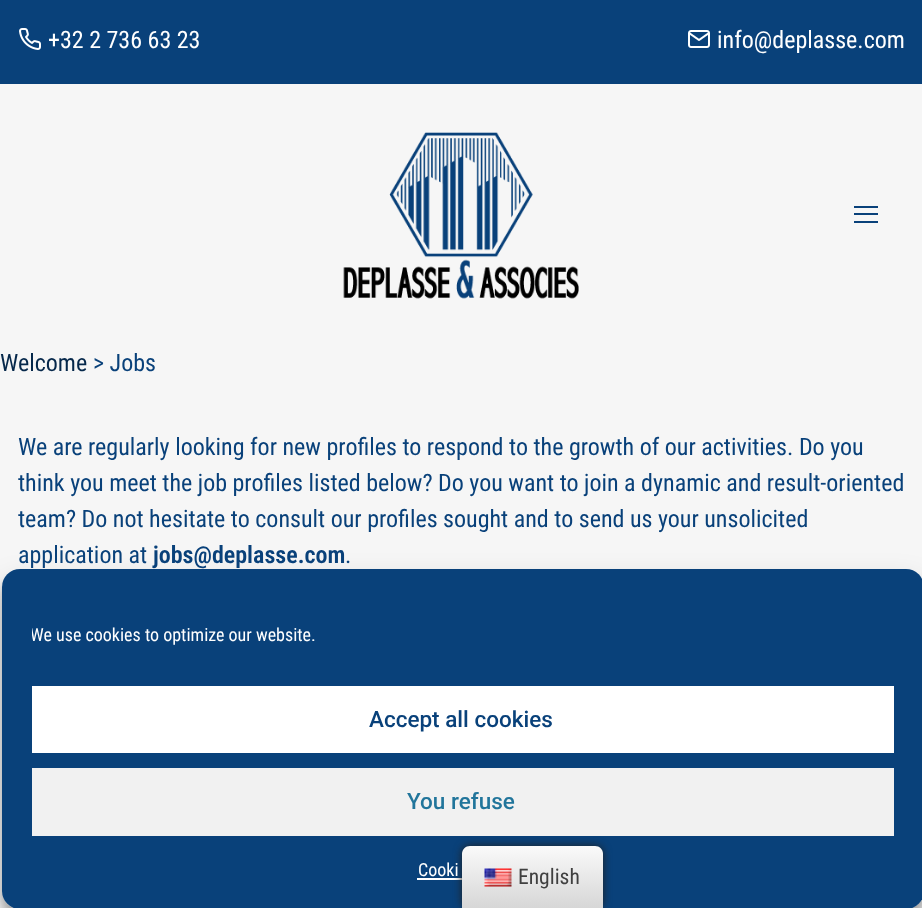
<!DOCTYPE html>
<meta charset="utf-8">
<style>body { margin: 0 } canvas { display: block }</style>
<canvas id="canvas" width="922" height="908"></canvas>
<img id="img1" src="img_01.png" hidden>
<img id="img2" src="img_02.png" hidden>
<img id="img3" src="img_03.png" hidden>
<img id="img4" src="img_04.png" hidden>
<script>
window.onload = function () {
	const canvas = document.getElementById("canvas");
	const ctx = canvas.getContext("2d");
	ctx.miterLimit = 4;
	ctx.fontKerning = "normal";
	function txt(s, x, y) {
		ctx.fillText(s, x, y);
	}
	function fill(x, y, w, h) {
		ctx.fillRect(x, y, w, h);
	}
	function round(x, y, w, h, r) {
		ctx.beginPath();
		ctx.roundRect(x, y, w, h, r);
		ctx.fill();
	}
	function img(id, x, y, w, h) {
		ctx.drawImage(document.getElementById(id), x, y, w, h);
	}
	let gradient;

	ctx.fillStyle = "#F6F6F6";
	fill(0, 0, 922, 908);
	ctx.fillStyle = "#09417A";
	fill(0, 0, 922, 84);
	img("img1", 19, 28, 22, 22);
	img("img2", 688, 30, 22, 18);
	img("img3", 343, 132, 236, 167);
	fill(854, 206, 24, 2);
	fill(854, 213, 24, 2);
	fill(854, 221, 24, 2);
	ctx.save();
	ctx.beginPath();
	ctx.moveTo(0, 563);
	ctx.lineTo(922, 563);
	ctx.lineTo(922, 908);
	ctx.lineTo(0, 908);
	ctx.closePath();
	ctx.moveTo(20, 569);
	ctx.lineTo(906, 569);
	ctx.bezierCurveTo(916, 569, 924, 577, 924, 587);
	ctx.lineTo(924, 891);
	ctx.bezierCurveTo(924, 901, 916, 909, 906, 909);
	ctx.lineTo(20, 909);
	ctx.bezierCurveTo(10, 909, 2, 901, 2, 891);
	ctx.lineTo(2, 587);
	ctx.bezierCurveTo(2, 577, 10, 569, 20, 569);
	ctx.closePath();
	ctx.clip("evenodd");
	ctx.fillStyle = "rgba(0, 0, 0, 0.23)";
	ctx.filter = "blur(4.5px)";
	ctx.beginPath();
	ctx.roundRect(2, 578, 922, 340, 18);
	ctx.fill();
	ctx.filter = "none";
	ctx.restore();
	ctx.save();
	ctx.beginPath();
	ctx.moveTo(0, 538);
	ctx.lineTo(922, 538);
	ctx.lineTo(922, 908);
	ctx.lineTo(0, 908);
	ctx.closePath();
	ctx.moveTo(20, 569);
	ctx.lineTo(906, 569);
	ctx.bezierCurveTo(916, 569, 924, 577, 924, 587);
	ctx.lineTo(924, 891);
	ctx.bezierCurveTo(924, 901, 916, 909, 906, 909);
	ctx.lineTo(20, 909);
	ctx.bezierCurveTo(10, 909, 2, 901, 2, 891);
	ctx.lineTo(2, 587);
	ctx.bezierCurveTo(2, 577, 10, 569, 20, 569);
	ctx.closePath();
	ctx.clip("evenodd");
	ctx.fillStyle = "rgba(0, 0, 0, 0.19)";
	ctx.filter = "blur(15px)";
	ctx.beginPath();
	ctx.roundRect(2, 584, 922, 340, 18);
	ctx.fill();
	ctx.filter = "none";
	ctx.restore();
	round(2, 569, 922, 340, 18);
	ctx.fillStyle = "#FFFFFF";
	fill(32, 686, 862, 67);
	ctx.fillStyle = "#F1F1F1";
	fill(32, 768, 862, 68);
	ctx.fillStyle = "#FFFFFF";
	fill(417, 878, 45, 2);
	ctx.fillStyle = "#212121";
	ctx.filter = "blur(4px)";
	ctx.beginPath();
	ctx.roundRect(462, 846, 141, 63, 8);
	ctx.fill();
	ctx.filter = "none";
	gradient = ctx.createLinearGradient(533, 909, 533, 846);
	gradient.addColorStop(0, "#D6D6D6");
	gradient.addColorStop(1, "#FAFAFA");
	ctx.fillStyle = gradient;
	ctx.beginPath();
	ctx.moveTo(470, 846);
	ctx.lineTo(595, 846);
	ctx.bezierCurveTo(599.5, 846, 603, 849.5, 603, 854);
	ctx.lineTo(603, 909);
	ctx.lineTo(462, 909);
	ctx.lineTo(462, 854);
	ctx.bezierCurveTo(462, 849.5, 465.5, 846, 470, 846);
	ctx.closePath();
	ctx.fill();
	img("img4", 484, 868, 28, 19);
	ctx.font = "24px Roboto Condensed";
	ctx.fillStyle = "#FFFFFF";
	txt("+32 2 736 63 23", 48, 48);
	txt("info@deplasse.com", 717, 48);
	ctx.fillStyle = "#06284B";
	txt("Welcome", 0, 371);
	ctx.fillStyle = "#09417A";
	txt("> Jobs", 93, 371);
	txt("We are regularly looking for new profiles to respond to the growth of our activities. Do you", 18, 455);
	txt("think you meet the job profiles listed below? Do you want to join a dynamic and result-oriented", 18, 491);
	txt("team? Do not hesitate to consult our profiles sought and to send us your unsolicited", 18, 527);
	txt("application at", 18, 563);
	ctx.font = "600 24px Roboto Condensed";
	txt("jobs@deplasse.com", 153, 563);
	ctx.font = "24px Roboto Condensed";
	txt(".", 345, 563);
	ctx.save();
	ctx.beginPath();
	ctx.rect(32, 621, 862, 35);
	ctx.clip();
	ctx.font = "18px Roboto Condensed";
	ctx.fillStyle = "#FFFFFF";
	txt("We use cookies to optimize our website.", 30, 641);
	ctx.restore();
	ctx.font = "500 22.5px Roboto";
	txt("Accept all cookies", 369, 727);
	ctx.fillStyle = "#21759B";
	txt("You refuse", 407, 809);
	ctx.font = "18px Roboto Condensed";
	ctx.fillStyle = "#FFFFFF";
	txt("Cooki", 418, 876);
	ctx.font = "21.5px Roboto Condensed";
	ctx.fillStyle = "#404040";
	txt("English", 518, 884);
};
</script>
